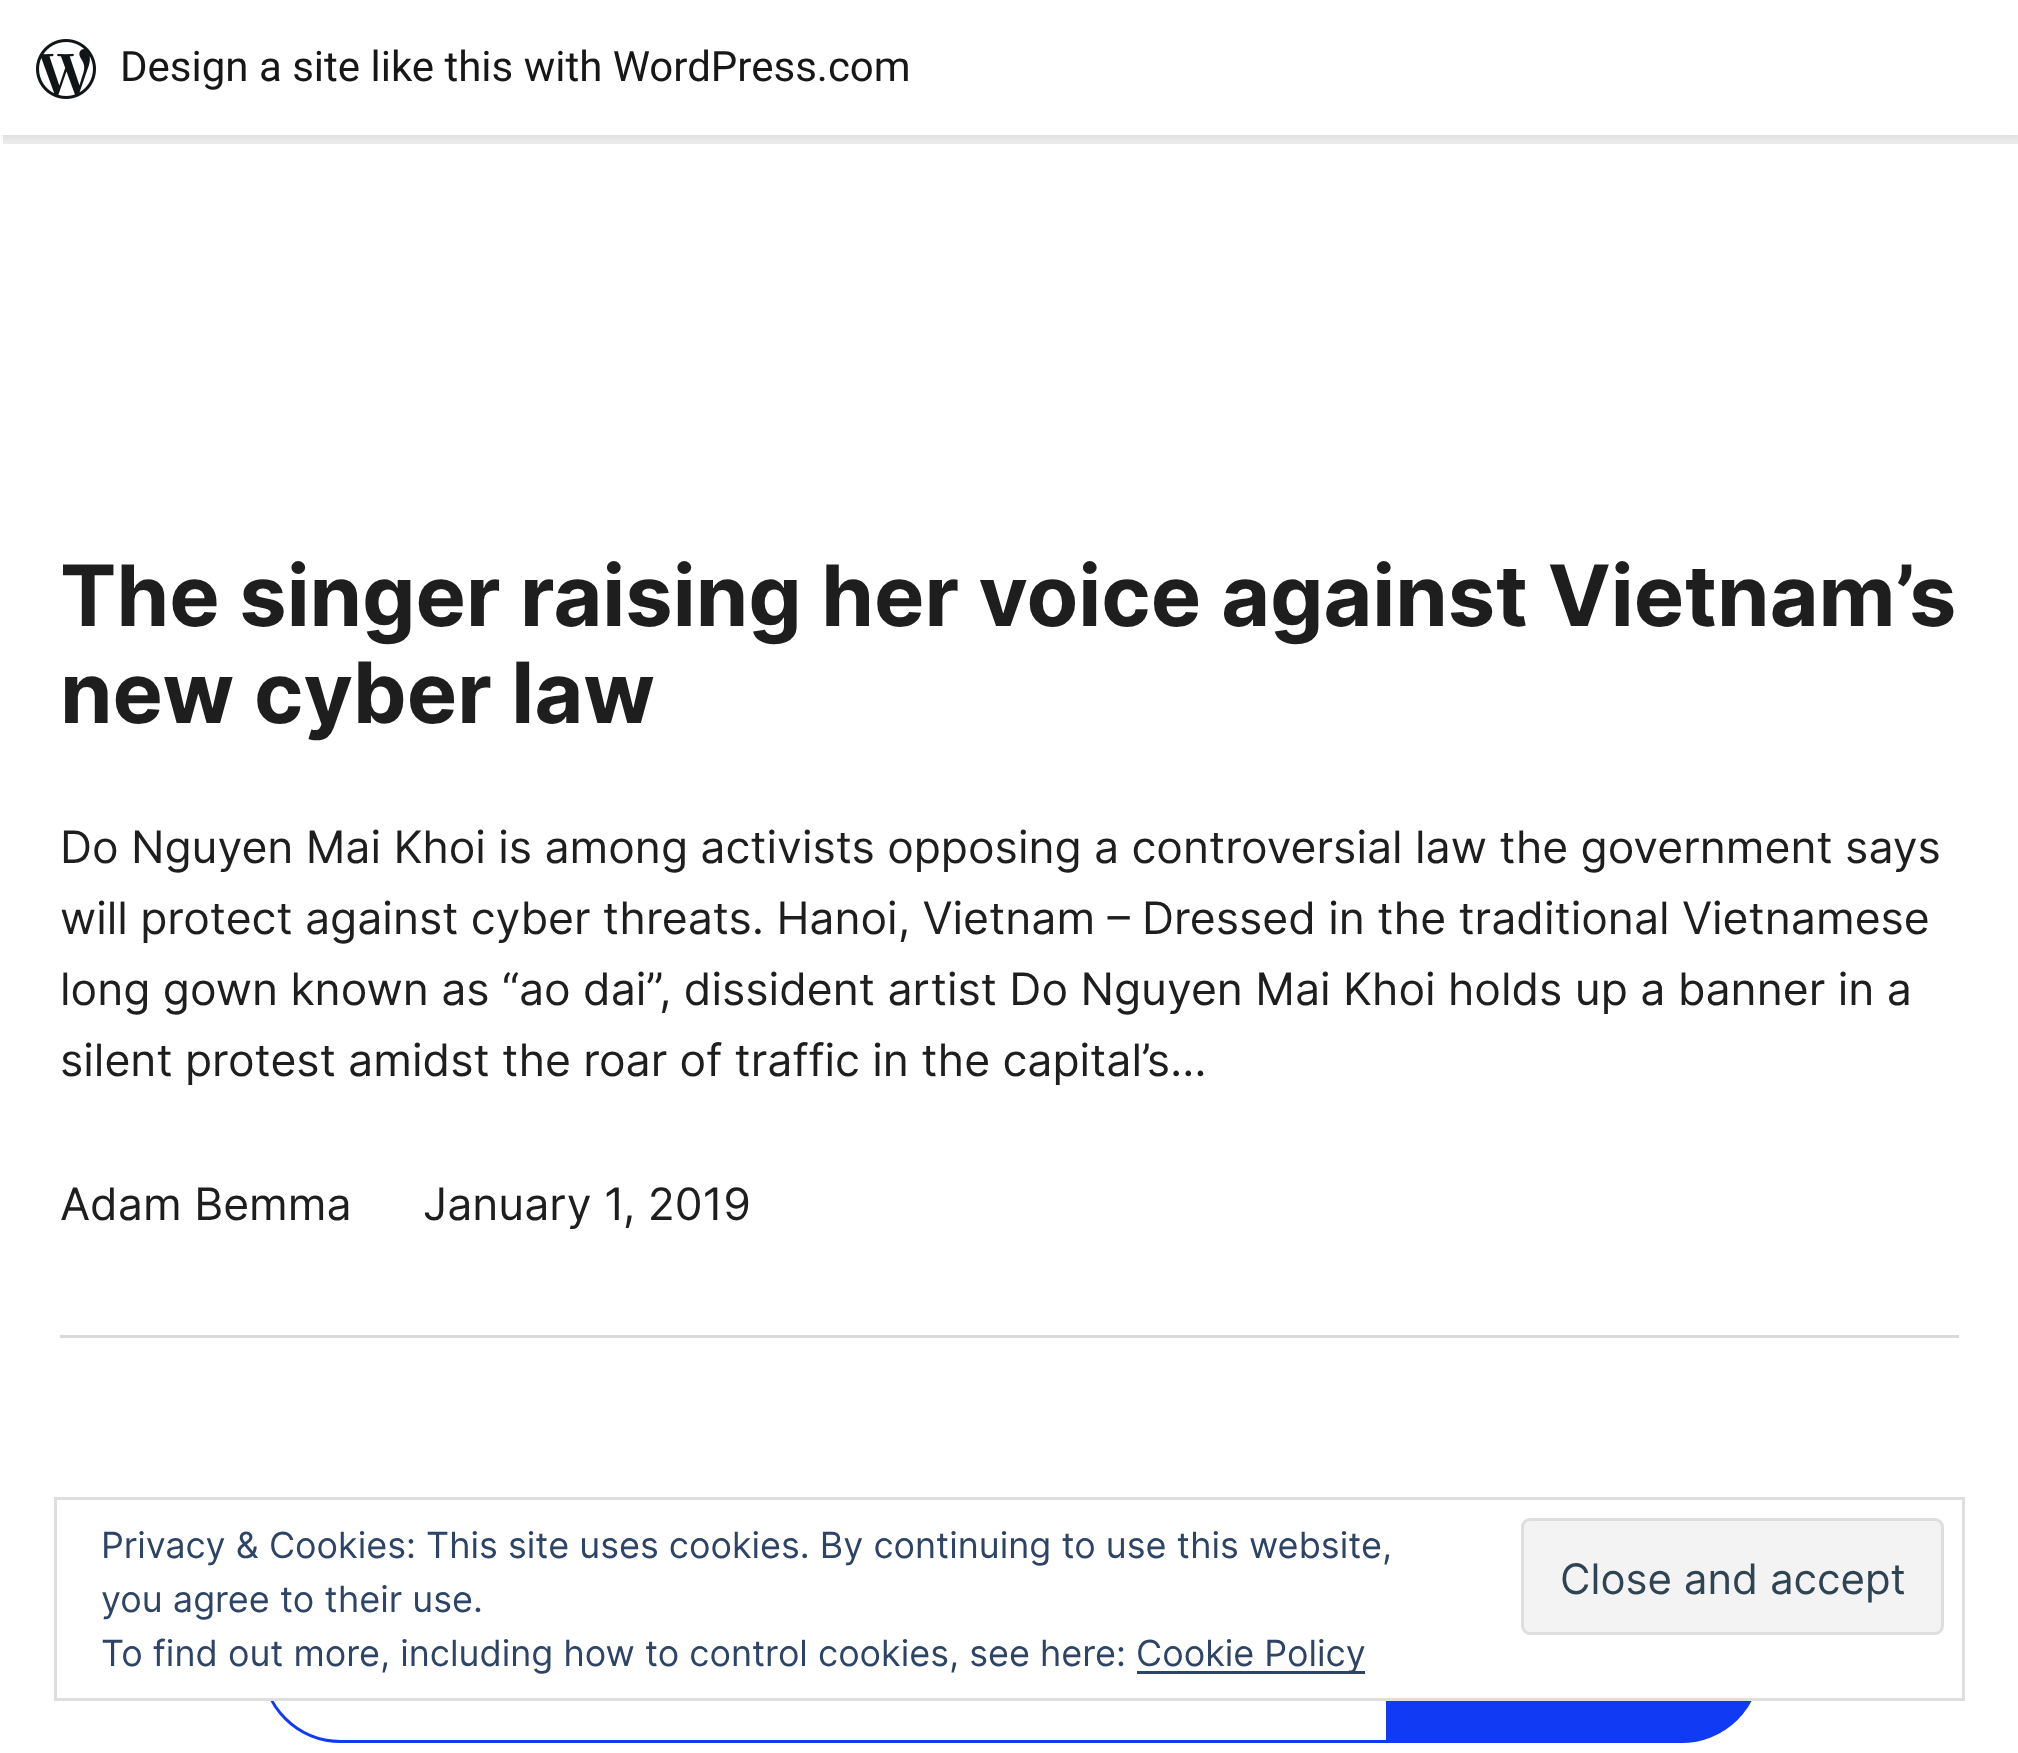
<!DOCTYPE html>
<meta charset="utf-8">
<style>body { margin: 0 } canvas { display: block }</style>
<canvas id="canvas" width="2018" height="1753"></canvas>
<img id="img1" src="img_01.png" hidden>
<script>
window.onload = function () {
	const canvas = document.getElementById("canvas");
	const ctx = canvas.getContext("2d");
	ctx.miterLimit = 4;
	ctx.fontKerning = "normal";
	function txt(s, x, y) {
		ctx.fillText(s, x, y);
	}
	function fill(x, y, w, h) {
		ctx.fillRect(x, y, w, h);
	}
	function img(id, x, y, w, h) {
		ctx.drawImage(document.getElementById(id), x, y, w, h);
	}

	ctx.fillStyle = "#FFFFFF";
	fill(0, 0, 2018, 1753);
	ctx.fillStyle = "rgba(0, 0, 0, 0.05)";
	ctx.filter = "blur(3px)";
	ctx.beginPath();
	ctx.rect(0, 3, 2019, 135);
	ctx.fill();
	ctx.filter = "none";
	ctx.fillStyle = "rgba(0, 0, 0, 0.08)";
	ctx.beginPath();
	ctx.moveTo(3, 135);
	ctx.lineTo(3, 144);
	ctx.lineTo(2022, 144);
	ctx.lineTo(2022, 9);
	ctx.lineTo(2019, 9);
	ctx.lineTo(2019, 135);
	ctx.closePath();
	ctx.fill();
	ctx.fillStyle = "#FFFFFF";
	fill(0, 0, 2018, 135);
	img("img1", 36, 39, 60, 60);
	ctx.fillStyle = "#D9D9D9";
	fill(60, 1335, 1899, 3);
	ctx.beginPath();
	ctx.roundRect(262.5, 1585.5, 1125, 156, [78, 0, 0, 78]);
	ctx.strokeStyle = "#113AF5";
	ctx.lineWidth = 3;
	ctx.stroke();
	ctx.fillStyle = "#113AF5";
	ctx.beginPath();
	ctx.roundRect(1390.5, 1585.5, 369, 156, [0, 78, 78, 0]);
	ctx.fill();
	ctx.stroke();
	ctx.fillStyle = "#FFFFFF";
	fill(261, 1584, 1500, 114);
	ctx.strokeStyle = "#DEDEDE";
	ctx.strokeRect(55.5, 1498.5, 1908, 201);
	ctx.fillStyle = "#F3F3F3";
	ctx.beginPath();
	ctx.roundRect(1522.5, 1519.5, 420, 114, 7.5);
	ctx.fill();
	ctx.stroke();
	ctx.fillStyle = "#2E4467";
	fill(1137, 1671, 228, 3);
	ctx.font = "42px Roboto";
	ctx.fillStyle = "#171717";
	txt("Design a site like this with WordPress.com", 120, 81);
	ctx.font = "bold 84.45px Inter";
	ctx.fillStyle = "#1E1E1E";
	txt("The singer raising her voice against Vietnam’s", 60, 626);
	txt("new cyber law", 60, 723);
	ctx.wordSpacing = "-0.2px";
	ctx.font = "44.55px Inter";
	txt("Do Nguyen Mai Khoi is among activists opposing a controversial law the government says", 60, 863);
	ctx.wordSpacing = "-0.25px";
	txt("will protect against cyber threats. Hanoi, Vietnam – Dressed in the traditional Vietnamese", 60, 934);
	ctx.wordSpacing = "-0.1px";
	txt("long gown known as “ao dai”, dissident artist Do Nguyen Mai Khoi holds up a banner in a", 60, 1005);
	ctx.wordSpacing = "-0.25px";
	txt("silent protest amidst the roar of traffic in the capital’s…", 60, 1076);
	ctx.wordSpacing = "0px";
	txt("Adam Bemma", 60, 1220);
	txt("January 1, 2019", 423, 1220);
	ctx.font = "36px Inter";
	ctx.fillStyle = "#2E4467";
	txt("Privacy & Cookies: This site uses cookies. By continuing to use this website,", 101, 1558);
	txt("you agree to their use.", 101, 1612);
	ctx.font = "42px Inter";
	ctx.fillStyle = "#2E4453";
	txt("Close and accept", 1560, 1594);
	ctx.font = "36px Inter";
	ctx.fillStyle = "#2E4467";
	txt("To find out more, including how to control cookies, see here:", 101, 1666);
	txt("Cookie Policy", 1136, 1666);
};
</script>
